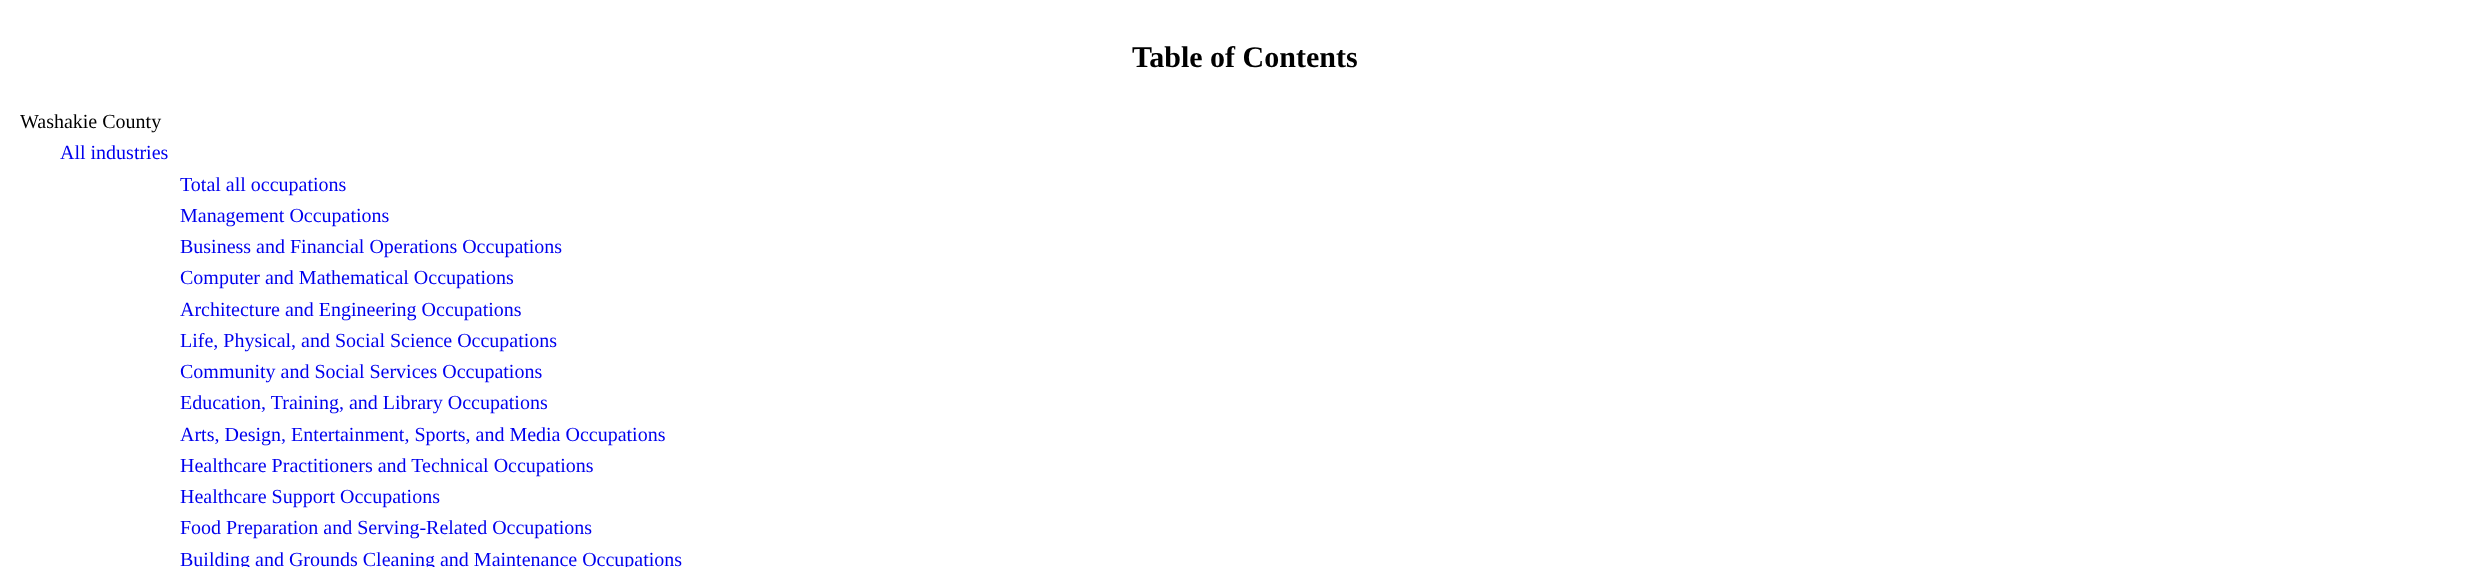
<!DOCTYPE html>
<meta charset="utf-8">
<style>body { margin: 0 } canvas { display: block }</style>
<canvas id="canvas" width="2488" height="567"></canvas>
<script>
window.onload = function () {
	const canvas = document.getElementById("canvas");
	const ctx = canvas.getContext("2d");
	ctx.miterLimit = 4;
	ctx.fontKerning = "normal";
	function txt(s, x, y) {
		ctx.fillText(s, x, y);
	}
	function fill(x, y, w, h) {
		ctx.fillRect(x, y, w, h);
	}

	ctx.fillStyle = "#FFFFFF";
	fill(0, 0, 2488, 567);
	ctx.font = "bold 30px Liberation Serif";
	ctx.fillStyle = "#000000";
	txt("Table of Contents", 1132, 67);
	ctx.font = "20px Liberation Serif";
	txt("Washakie County", 20, 128);
	ctx.fillStyle = "#0000EE";
	txt("All industries", 60, 159);
	txt("Total all occupations", 180, 191);
	txt("Management Occupations", 180, 222);
	txt("Business and Financial Operations Occupations", 180, 253);
	txt("Computer and Mathematical Occupations", 180, 284);
	txt("Architecture and Engineering Occupations", 180, 316);
	txt("Life, Physical, and Social Science Occupations", 180, 347);
	txt("Community and Social Services Occupations", 180, 378);
	txt("Education, Training, and Library Occupations", 180, 409);
	txt("Arts, Design, Entertainment, Sports, and Media Occupations", 180, 441);
	txt("Healthcare Practitioners and Technical Occupations", 180, 472);
	txt("Healthcare Support Occupations", 180, 503);
	txt("Food Preparation and Serving-Related Occupations", 180, 534);
	txt("Building and Grounds Cleaning and Maintenance Occupations", 180, 566);
};
</script>
